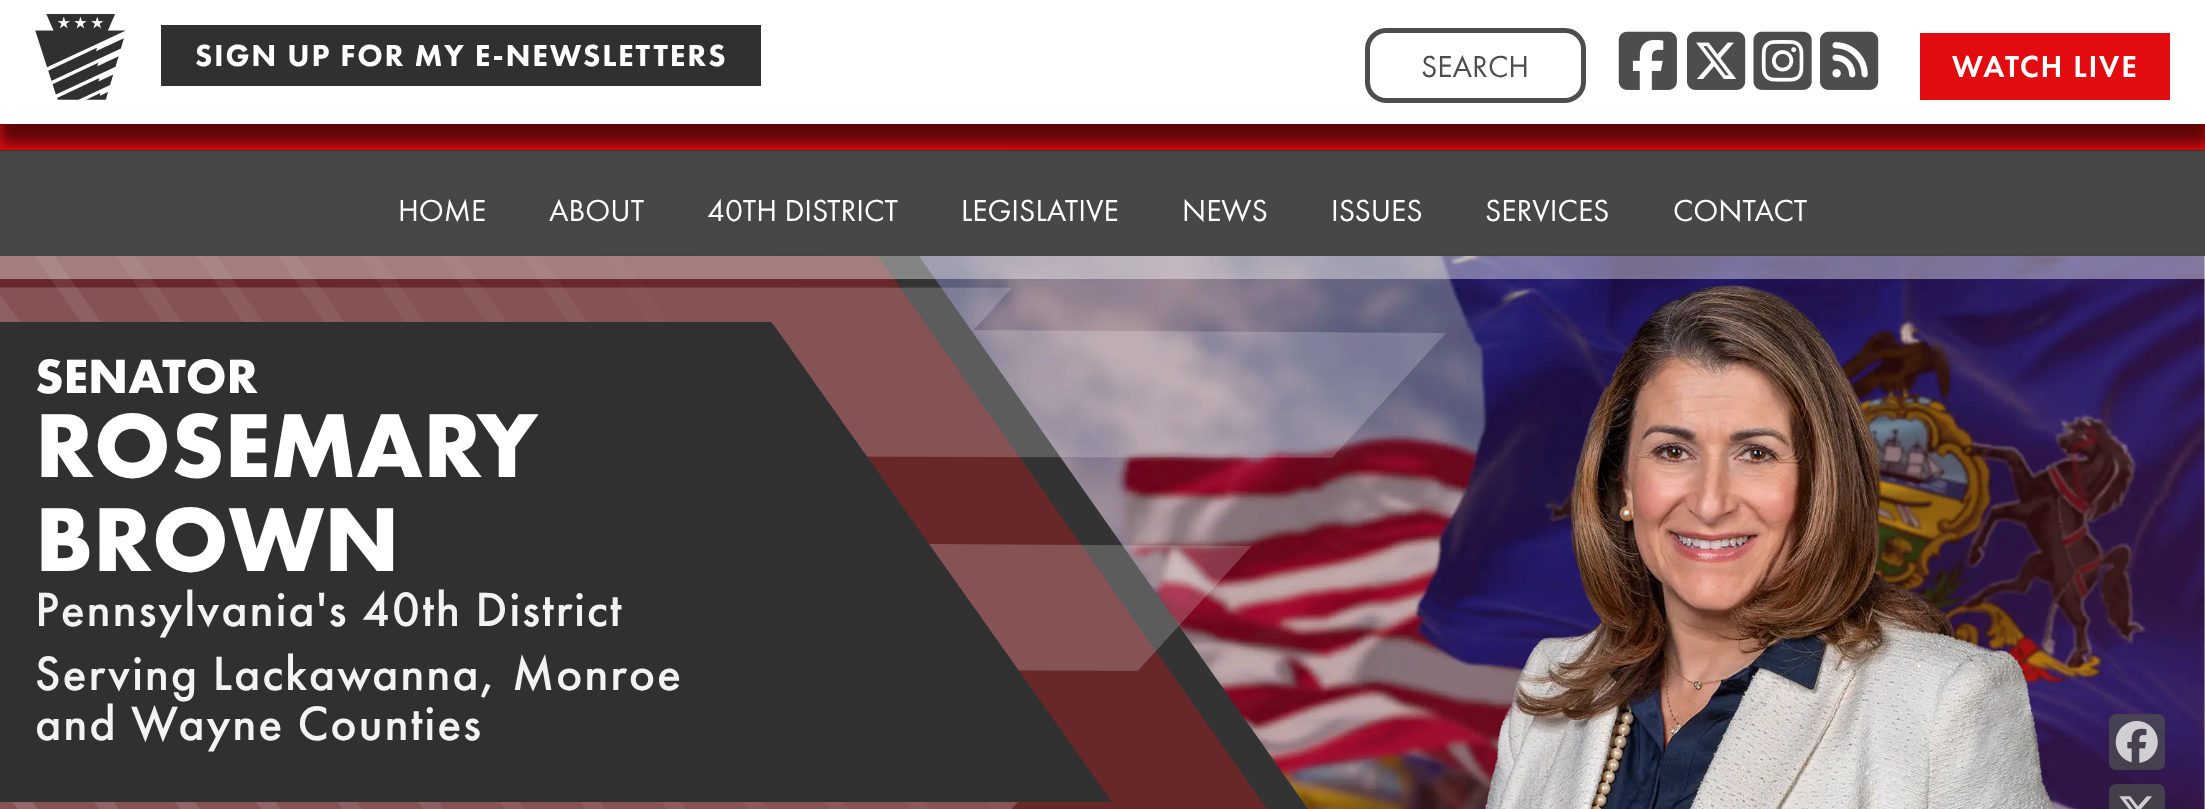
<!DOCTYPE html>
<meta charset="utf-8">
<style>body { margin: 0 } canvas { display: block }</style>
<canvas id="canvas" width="2205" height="809"></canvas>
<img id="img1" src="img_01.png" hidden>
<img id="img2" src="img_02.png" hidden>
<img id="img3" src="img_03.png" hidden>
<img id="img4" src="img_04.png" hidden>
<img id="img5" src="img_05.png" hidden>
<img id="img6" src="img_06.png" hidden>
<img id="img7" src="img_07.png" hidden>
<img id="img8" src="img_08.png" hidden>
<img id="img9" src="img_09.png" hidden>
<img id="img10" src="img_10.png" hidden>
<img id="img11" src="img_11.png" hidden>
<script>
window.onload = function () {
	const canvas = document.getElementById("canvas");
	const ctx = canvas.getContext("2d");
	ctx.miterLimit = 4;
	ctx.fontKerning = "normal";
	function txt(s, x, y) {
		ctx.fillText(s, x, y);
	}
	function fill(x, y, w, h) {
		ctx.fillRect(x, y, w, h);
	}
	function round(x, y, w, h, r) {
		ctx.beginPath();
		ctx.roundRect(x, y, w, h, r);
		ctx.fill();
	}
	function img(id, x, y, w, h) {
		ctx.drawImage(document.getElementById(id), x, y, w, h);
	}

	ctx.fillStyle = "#FFFFFF";
	fill(0, 0, 2205, 809);
	img("img1", 231, 151, 910, 105);
	ctx.fillStyle = "#E20C10";
	fill(0, 124, 2205, 27);
	ctx.fillStyle = "rgba(0, 0, 0, 0.59)";
	ctx.filter = "blur(7px)";
	ctx.beginPath();
	ctx.rect(0, 16, 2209, 128);
	ctx.fill();
	ctx.filter = "none";
	ctx.fillStyle = "#FFFFFF";
	fill(0, 1, 2205, 123);
	img("img2", 35, 14, 91, 86);
	ctx.fillStyle = "#303030";
	fill(161, 25, 600, 61);
	ctx.beginPath();
	ctx.roundRect(1367.5, 30.5, 216, 70, 18.5);
	ctx.strokeStyle = "#4D4D4D";
	ctx.lineWidth = 5;
	ctx.stroke();
	img("img3", 1618, 31, 59, 59);
	img("img4", 1687, 31, 59, 59);
	img("img5", 1753, 31, 59, 59);
	img("img6", 1820, 31, 59, 59);
	ctx.fillStyle = "#E20C10";
	fill(1920, 33, 250, 67);
	img("img7", 598, 255, 1607, 554);
	img("img8", 0, 256, 1446, 553);
	ctx.fillStyle = "rgba(255, 255, 255, 0.4)";
	fill(0, 255, 2205, 24);
	ctx.fillStyle = "rgba(255, 255, 255, 0.1)";
	fill(231, 151, 1974, 105);
	ctx.fillStyle = "rgba(51, 51, 51, 0.9)";
	fill(0, 150, 2205, 106);
	img("img9", 1485, 285, 570, 524);
	ctx.fillStyle = "#303030";
	fill(0, 322, 772, 480);
	ctx.beginPath();
	ctx.moveTo(1112, 802);
	ctx.lineTo(772, 802);
	ctx.lineTo(772, 324);
	ctx.lineTo(773, 324);
	ctx.closePath();
	ctx.fill();
	ctx.fillStyle = "rgba(77, 77, 77, 0.75)";
	round(2109, 714, 56, 56, 7);
	img("img10", 2115, 721, 43, 42);
	round(2109, 784, 56, 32, 7);
	img("img11", 2119, 796, 33, 13);
	ctx.letterSpacing = "1.75px";
	ctx.font = "900 31.5px Futura PT";
	ctx.fillStyle = "#FFFFFF";
	txt("SIGN UP FOR MY E-NEWSLETTERS", 195, 66);
	ctx.letterSpacing = "0px";
	ctx.font = "31.5px Futura PT";
	ctx.fillStyle = "#4D4D4D";
	txt("SEARCH", 1421, 77);
	ctx.letterSpacing = "1.75px";
	ctx.font = "500 31.5px 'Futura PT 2'";
	ctx.fillStyle = "#FFFFFF";
	txt("WATCH LIVE", 1952, 77);
	ctx.letterSpacing = "0px";
	ctx.font = "31.5px Futura PT";
	txt("HOME", 398, 221);
	txt("ABOUT", 549, 221);
	txt("40TH DISTRICT", 707, 221);
	txt("LEGISLATIVE", 961, 221);
	txt("NEWS", 1182, 221);
	txt("ISSUES", 1331, 221);
	txt("SERVICES", 1485, 221);
	txt("CONTACT", 1673, 221);
	ctx.font = "bold 50px Futura PT";
	txt("SENATOR", 35, 393);
	ctx.font = "bold 94px Futura PT";
	txt("ROSEMARY", 35, 477);
	txt("BROWN", 35, 571);
	ctx.letterSpacing = "1.75px";
	ctx.font = "500 50px Futura PT";
	ctx.fillStyle = "#F3F3F3";
	txt("Pennsylvania's 40th District", 35, 626);
	txt("Serving Lackawanna, Monroe", 35, 690);
	txt("and Wayne Counties", 35, 740);
};
</script>
